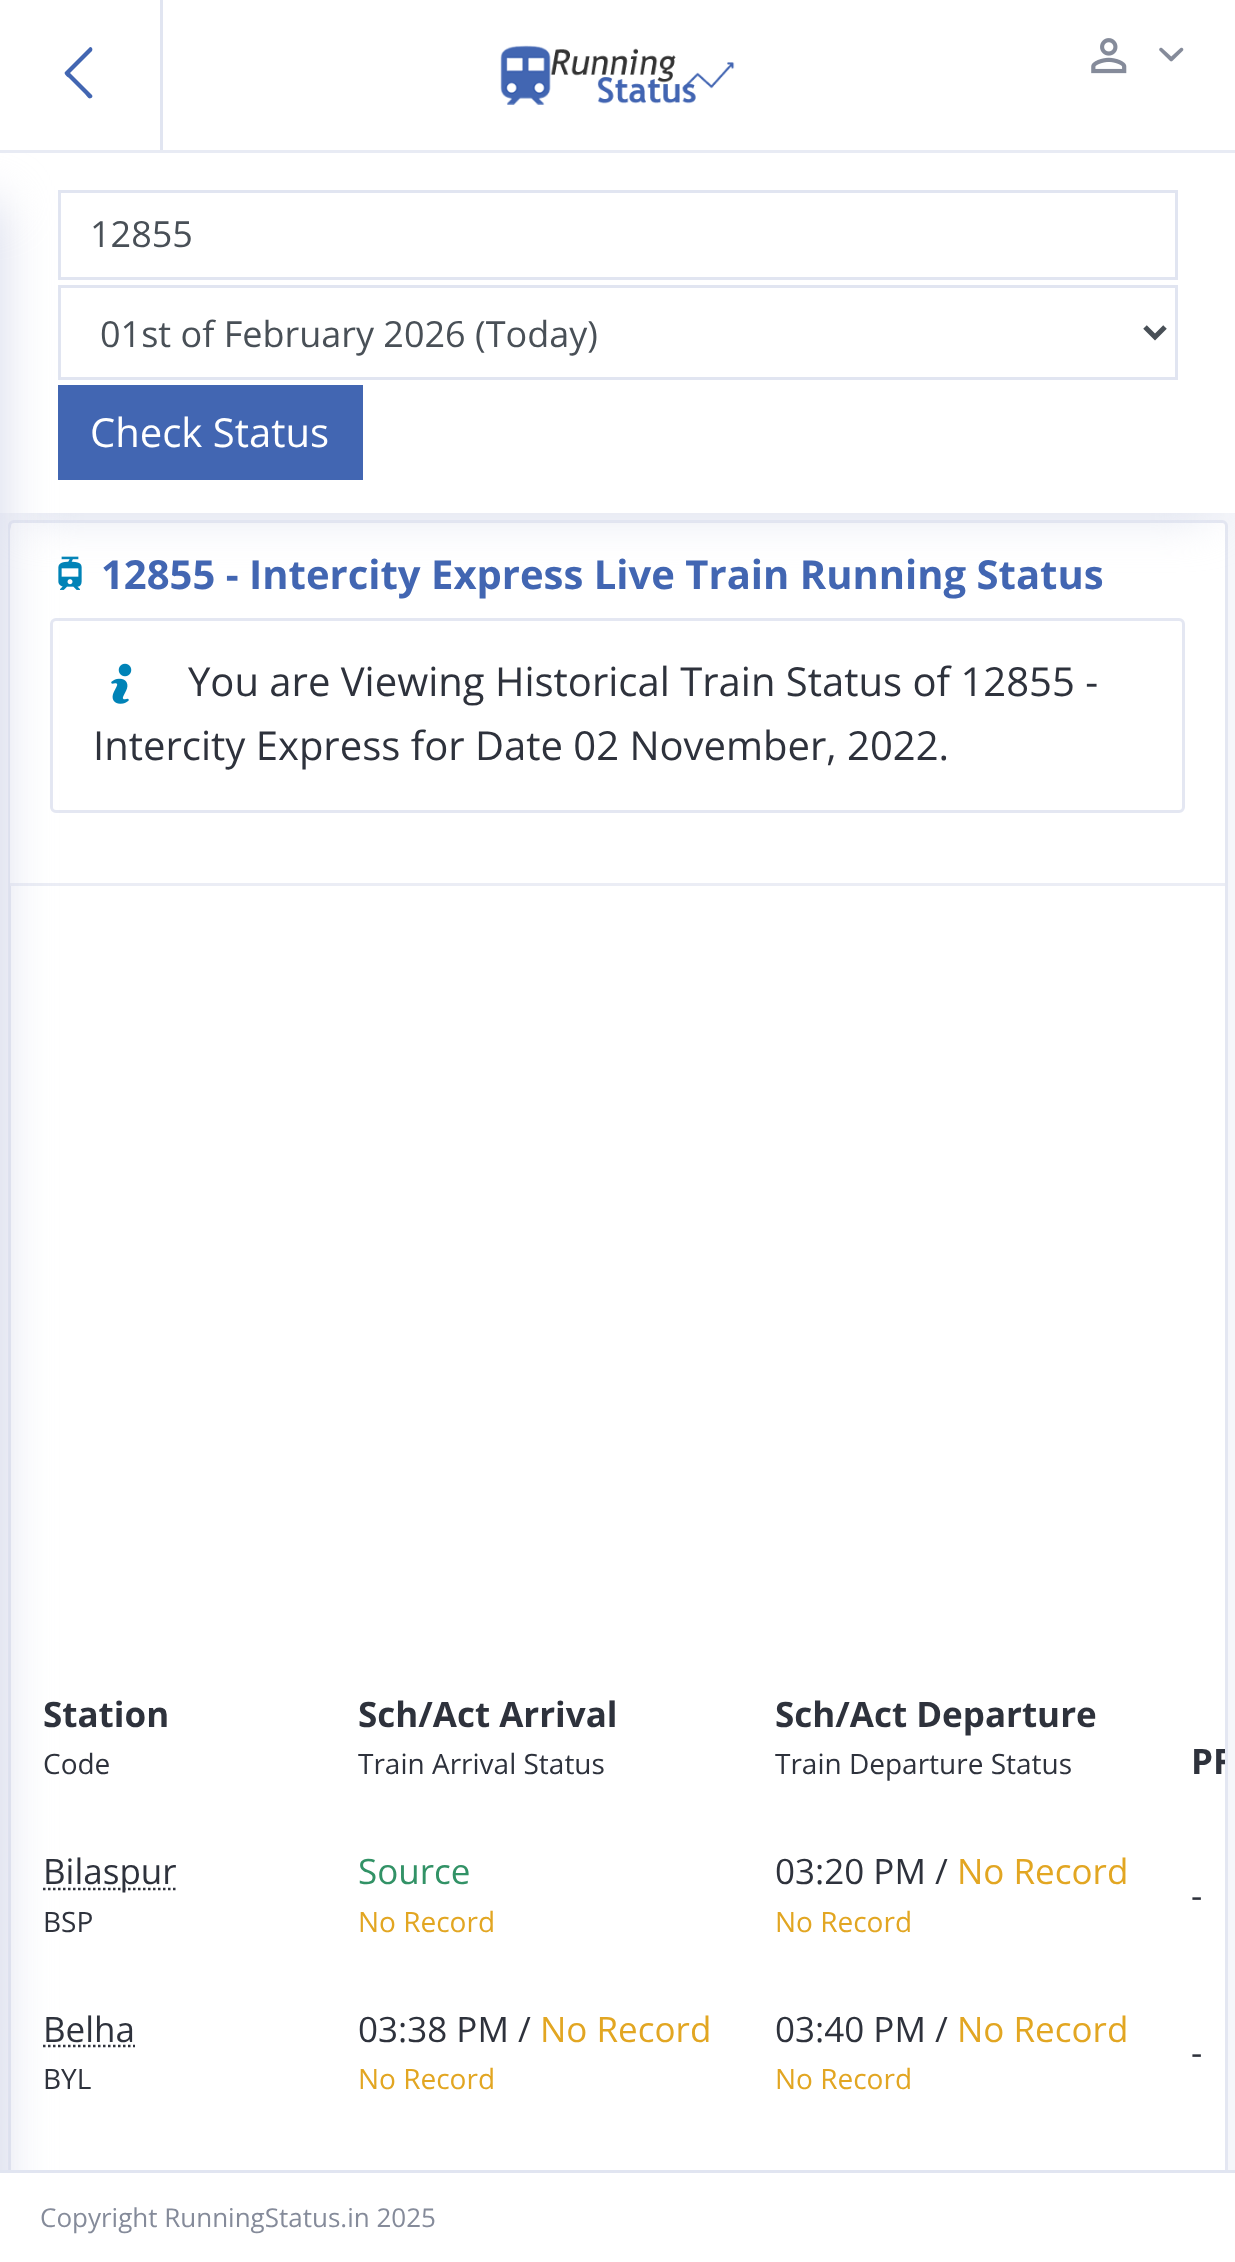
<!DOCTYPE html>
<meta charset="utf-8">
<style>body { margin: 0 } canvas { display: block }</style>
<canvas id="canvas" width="1235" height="2262"></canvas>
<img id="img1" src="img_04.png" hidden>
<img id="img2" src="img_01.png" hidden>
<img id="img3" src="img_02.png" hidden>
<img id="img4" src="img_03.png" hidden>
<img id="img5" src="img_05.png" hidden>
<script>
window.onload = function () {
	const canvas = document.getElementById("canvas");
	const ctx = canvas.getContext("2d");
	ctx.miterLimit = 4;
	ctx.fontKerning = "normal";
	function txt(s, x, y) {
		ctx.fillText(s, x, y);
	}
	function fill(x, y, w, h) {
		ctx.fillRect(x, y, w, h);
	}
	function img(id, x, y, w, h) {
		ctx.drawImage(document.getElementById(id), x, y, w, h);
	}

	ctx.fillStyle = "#F5F6FA";
	fill(0, 0, 1235, 2262);
	ctx.fillStyle = "#FFFFFF";
	ctx.beginPath();
	ctx.roundRect(9.5, 521.5, 1217, 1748, 4.5);
	ctx.fill();
	ctx.strokeStyle = "#E4E7F2";
	ctx.lineWidth = 3;
	ctx.stroke();
	ctx.beginPath();
	ctx.roundRect(10, 523, 1215, 362, [8, 8, 0, 0]);
	ctx.fill();
	img("img1", 58, 556, 24, 34);
	ctx.fillStyle = "#DDE1EE";
	ctx.filter = "blur(25px)";
	ctx.beginPath();
	ctx.rect(25, 203, 1185, 310);
	ctx.fill();
	ctx.filter = "none";
	ctx.fillStyle = "#FFFFFF";
	fill(0, 153, 1235, 360);
	ctx.strokeStyle = "#E1E5F1";
	ctx.strokeRect(59.5, 191.5, 1117, 87);
	ctx.strokeRect(59.5, 286.5, 1117, 92);
	ctx.fillStyle = "#4266B2";
	fill(58, 385, 305, 95);
	ctx.fillStyle = "#EBEDF5";
	fill(10, 883, 1215, 3);
	ctx.beginPath();
	ctx.roundRect(51.5, 619.5, 1132, 192, 4.5);
	ctx.strokeStyle = "#E4E7F2";
	ctx.stroke();
	ctx.beginPath();
	ctx.moveTo(43, 1889);
	ctx.lineTo(176.5, 1889);
	ctx.strokeStyle = "#2E323C";
	ctx.lineWidth = 2.5;
	ctx.setLineDash([2.5, 2.5]);
	ctx.stroke();
	ctx.beginPath();
	ctx.moveTo(43, 2046);
	ctx.lineTo(135, 2046);
	ctx.stroke();
	ctx.fillStyle = "#D3D7E9";
	ctx.filter = "blur(25px)";
	ctx.beginPath();
	ctx.rect(-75, 203, 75, 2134);
	ctx.fill();
	ctx.filter = "none";
	ctx.fillStyle = "#FFFFFF";
	fill(0, 0, 1235, 150);
	ctx.fillStyle = "#E8EBF4";
	fill(0, 150, 1235, 3);
	ctx.fillStyle = "#E1E5F1";
	fill(160, 0, 3, 150);
	ctx.fillStyle = "#4266B2";
	ctx.beginPath();
	ctx.moveTo(92, 95);
	ctx.bezierCurveTo(93, 96, 92, 98, 91, 98);
	ctx.bezierCurveTo(89, 100, 86, 95, 85, 94);
	ctx.lineTo(69, 78);
	ctx.bezierCurveTo(69, 78, 63, 74, 65, 72);
	ctx.lineTo(89, 48);
	ctx.lineTo(90, 47);
	ctx.bezierCurveTo(92, 47, 93, 49, 92, 51);
	ctx.lineTo(70, 73);
	ctx.closePath();
	ctx.fill();
	img("img2", 500, 45, 235, 60);
	img("img3", 1091, 38, 36, 36);
	img("img4", 1159, 47, 25, 15);
	ctx.beginPath();
	ctx.moveTo(1145, 327);
	ctx.lineTo(1155, 337);
	ctx.lineTo(1165, 327);
	ctx.strokeStyle = "#495057";
	ctx.lineWidth = 5;
	ctx.setLineDash([]);
	ctx.stroke();
	img("img5", 111, 663, 21, 41);
	ctx.fillStyle = "#FFFFFF";
	fill(0, 2173, 1235, 89);
	ctx.fillStyle = "#E1E5F1";
	fill(0, 2170, 1235, 3);
	ctx.font = "36px Open Sans";
	ctx.fillStyle = "#495057";
	txt("12855", 90, 247);
	txt("01st of February 2026 (Today)", 100, 347);
	ctx.font = "40px Open Sans";
	ctx.fillStyle = "#FFFFFF";
	txt("Check Status", 90, 447);
	ctx.font = "bold 40px Open Sans";
	ctx.fillStyle = "#4266B2";
	txt("12855 - Intercity Express Live Train Running Status", 101, 589);
	ctx.font = "40px Open Sans";
	ctx.fillStyle = "#2E323C";
	txt("You are Viewing Historical Train Status of 12855 -", 188, 696);
	txt("Intercity Express for Date 02 November, 2022.", 93, 760);
	ctx.font = "bold 35px Open Sans";
	txt("Station", 43, 1727);
	ctx.font = "28px Open Sans";
	txt("Code", 43, 1774);
	ctx.font = "bold 35px Open Sans";
	txt("Sch/Act Arrival", 358, 1727);
	ctx.font = "28px Open Sans";
	txt("Train Arrival Status", 358, 1774);
	ctx.font = "bold 35px Open Sans";
	txt("Sch/Act Departure", 775, 1727);
	ctx.font = "28px Open Sans";
	txt("Train Departure Status", 775, 1774);
	ctx.save();
	ctx.beginPath();
	ctx.rect(10, 885, 1215, 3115);
	ctx.clip();
	ctx.font = "bold 35px Open Sans";
	txt("PF", 1191, 1774);
	ctx.restore();
	ctx.font = "35px Open Sans";
	txt("Bilaspur", 43, 1884);
	ctx.font = "28px Open Sans";
	txt("BSP", 43, 1932);
	ctx.font = "35px Open Sans";
	ctx.fillStyle = "#329266";
	txt("Source", 358, 1884);
	ctx.font = "28px Open Sans";
	ctx.fillStyle = "#E2A622";
	txt("No Record", 358, 1932);
	ctx.font = "35px Open Sans";
	ctx.fillStyle = "#2E323C";
	txt("03:20 PM /", 775, 1884);
	ctx.fillStyle = "#E2A622";
	txt("No Record", 957, 1884);
	ctx.font = "28px Open Sans";
	txt("No Record", 775, 1932);
	ctx.font = "35px Open Sans";
	ctx.fillStyle = "#2E323C";
	txt("-", 1191, 1908);
	txt("Belha", 43, 2042);
	ctx.font = "28px Open Sans";
	txt("BYL", 43, 2089);
	ctx.font = "35px Open Sans";
	txt("03:38 PM /", 358, 2042);
	ctx.fillStyle = "#E2A622";
	txt("No Record", 540, 2042);
	ctx.font = "28px Open Sans";
	txt("No Record", 358, 2089);
	ctx.font = "35px Open Sans";
	ctx.fillStyle = "#2E323C";
	txt("03:40 PM /", 775, 2042);
	ctx.fillStyle = "#E2A622";
	txt("No Record", 957, 2042);
	ctx.font = "28px Open Sans";
	txt("No Record", 775, 2089);
	ctx.font = "35px Open Sans";
	ctx.fillStyle = "#2E323C";
	txt("-", 1191, 2065);
	ctx.font = "26px Open Sans";
	ctx.fillStyle = "#858B9A";
	txt("Copyright RunningStatus.in 2025", 40, 2227);
};
</script>
